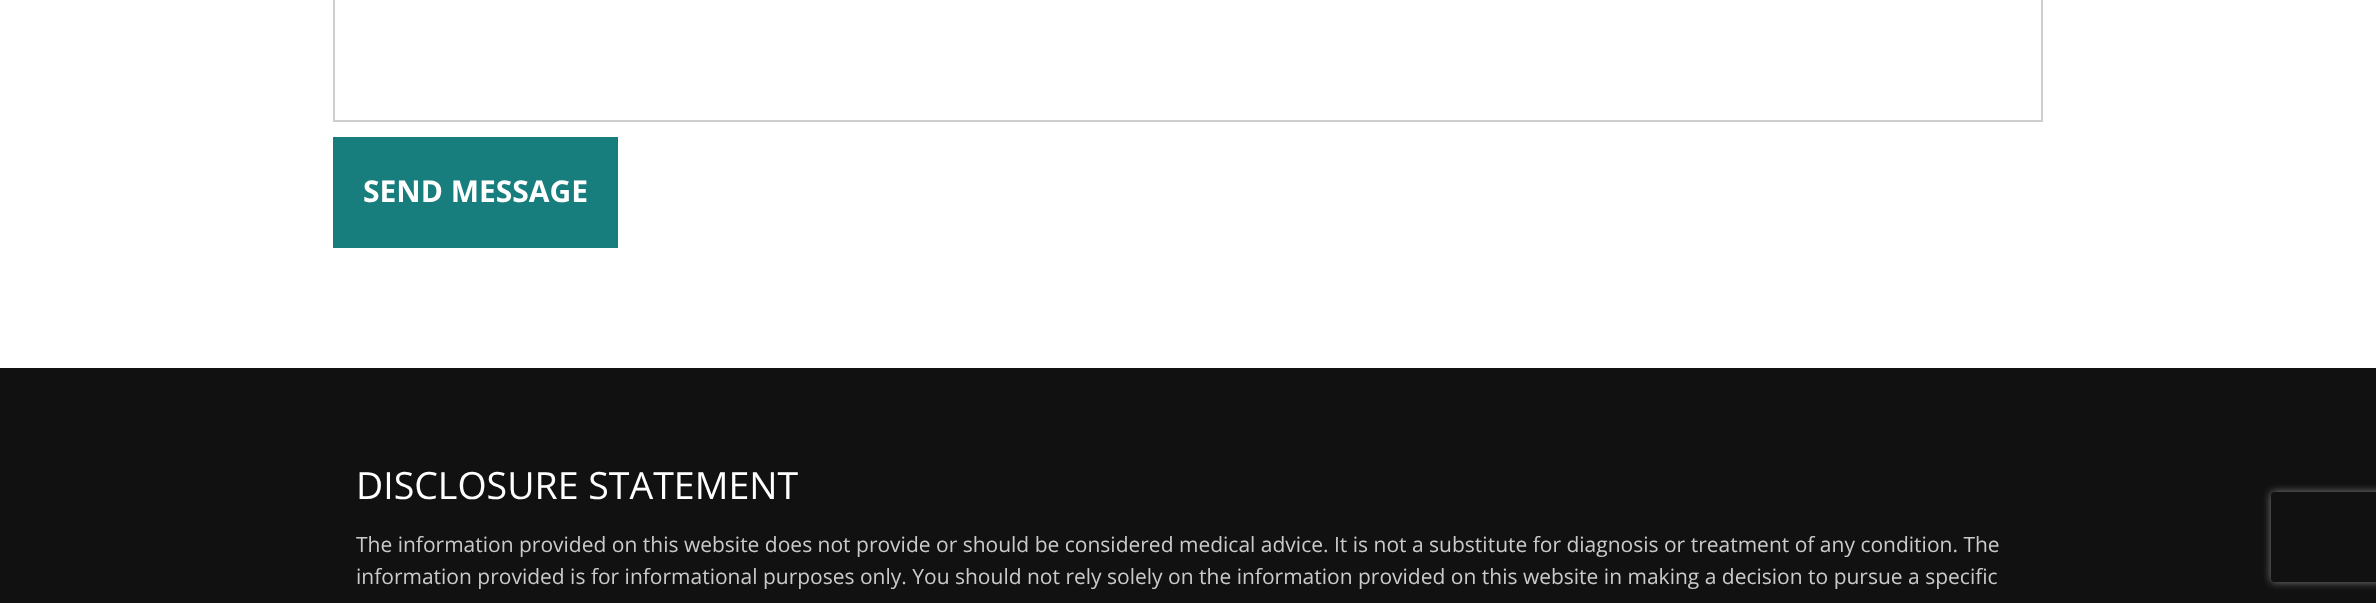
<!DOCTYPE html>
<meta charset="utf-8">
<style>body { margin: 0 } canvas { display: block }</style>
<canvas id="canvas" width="2376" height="603"></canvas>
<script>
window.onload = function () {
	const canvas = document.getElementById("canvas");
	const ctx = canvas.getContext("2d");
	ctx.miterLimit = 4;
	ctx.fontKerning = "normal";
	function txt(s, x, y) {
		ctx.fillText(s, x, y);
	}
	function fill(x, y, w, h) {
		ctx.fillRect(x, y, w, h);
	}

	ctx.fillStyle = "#FFFFFF";
	fill(0, 0, 2376, 603);
	ctx.strokeStyle = "#CFCFCF";
	ctx.lineWidth = 2;
	ctx.strokeRect(334, -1, 1708, 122);
	ctx.fillStyle = "#187D7D";
	fill(333, 137, 285, 111);
	ctx.fillStyle = "#111111";
	fill(0, 368, 2376, 235);
	ctx.save();
	ctx.beginPath();
	ctx.moveTo(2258, 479);
	ctx.lineTo(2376, 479);
	ctx.lineTo(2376, 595);
	ctx.lineTo(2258, 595);
	ctx.closePath();
	ctx.moveTo(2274, 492);
	ctx.lineTo(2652, 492);
	ctx.bezierCurveTo(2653.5, 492, 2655, 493.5, 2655, 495);
	ctx.lineTo(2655, 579);
	ctx.bezierCurveTo(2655, 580.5, 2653.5, 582, 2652, 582);
	ctx.lineTo(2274, 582);
	ctx.bezierCurveTo(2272.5, 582, 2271, 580.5, 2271, 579);
	ctx.lineTo(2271, 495);
	ctx.bezierCurveTo(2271, 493.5, 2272.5, 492, 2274, 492);
	ctx.closePath();
	ctx.clip("evenodd");
	ctx.fillStyle = "#808080";
	ctx.filter = "blur(4px)";
	ctx.beginPath();
	ctx.roundRect(2271, 492, 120, 90, 3);
	ctx.fill();
	ctx.filter = "none";
	ctx.restore();
	ctx.font = "bold 30px Open Sans";
	ctx.fillStyle = "#FFFFFF";
	txt("SEND MESSAGE", 363, 202);
	ctx.font = "37.5px Open Sans";
	txt("DISCLOSURE STATEMENT", 356, 499);
	ctx.font = "21px Open Sans";
	ctx.fillStyle = "#CACACA";
	txt("The information provided on this website does not provide or should be considered medical advice. It is not a substitute for diagnosis or treatment of any condition. The", 356, 552);
	txt("information provided is for informational purposes only. You should not rely solely on the information provided on this website in making a decision to pursue a specific", 356, 584);
};
</script>
